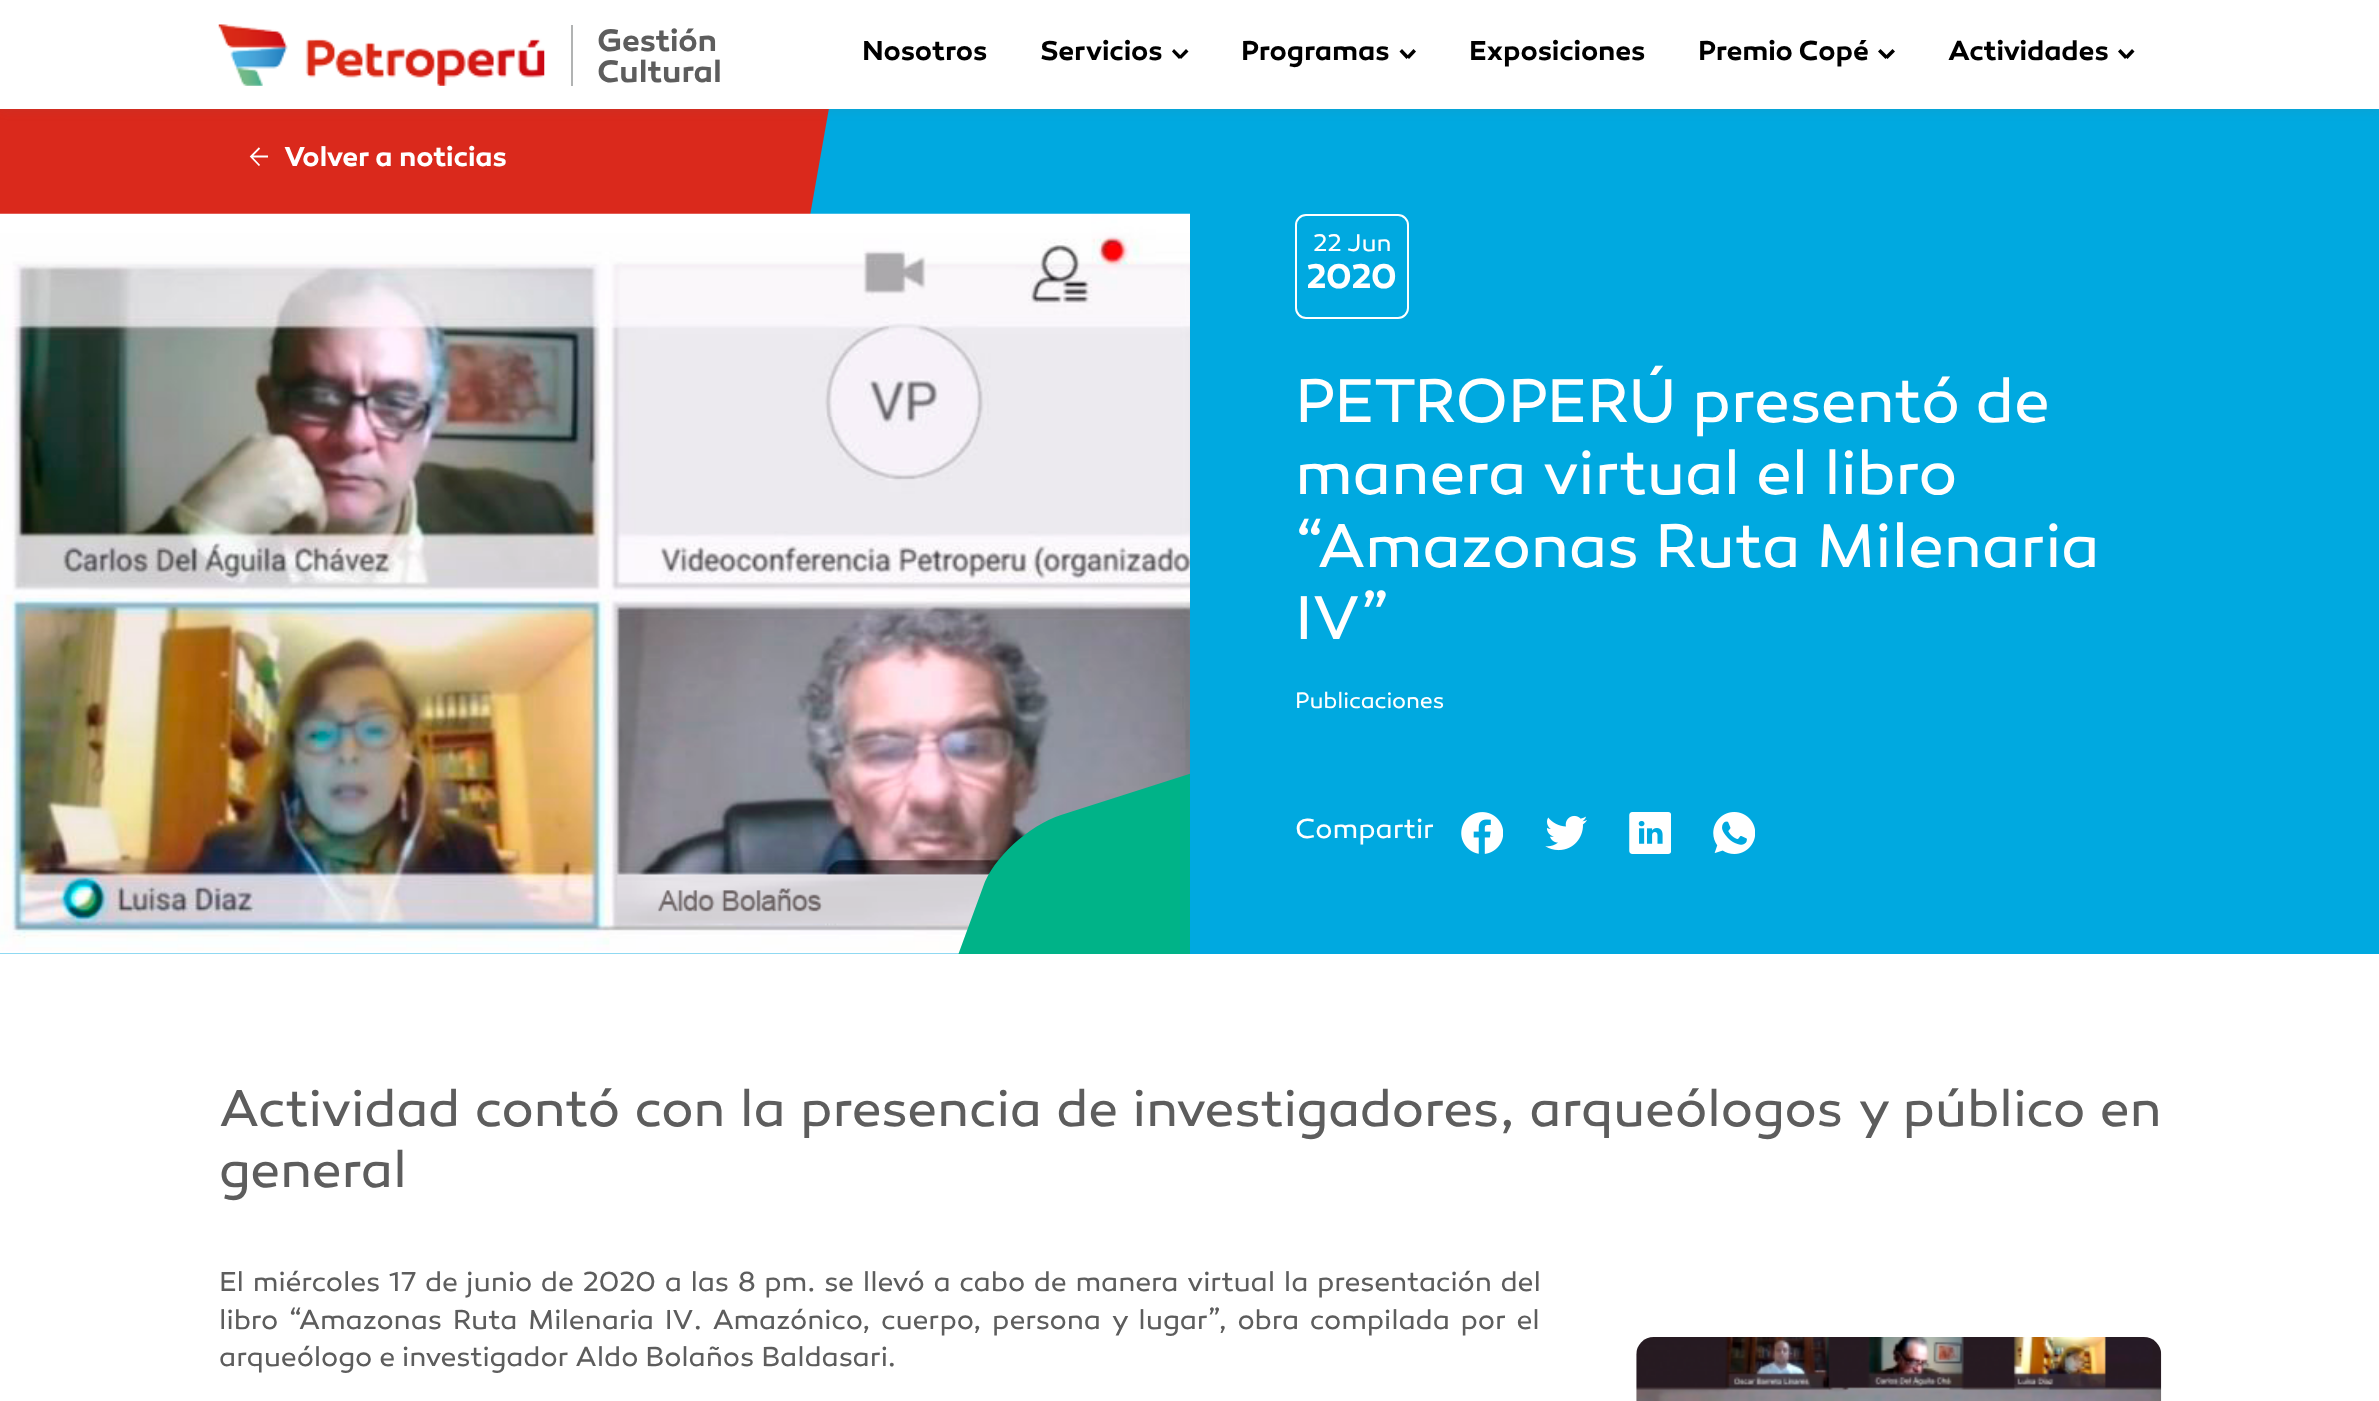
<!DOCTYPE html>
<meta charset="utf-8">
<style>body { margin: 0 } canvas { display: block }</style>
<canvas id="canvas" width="2379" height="1401"></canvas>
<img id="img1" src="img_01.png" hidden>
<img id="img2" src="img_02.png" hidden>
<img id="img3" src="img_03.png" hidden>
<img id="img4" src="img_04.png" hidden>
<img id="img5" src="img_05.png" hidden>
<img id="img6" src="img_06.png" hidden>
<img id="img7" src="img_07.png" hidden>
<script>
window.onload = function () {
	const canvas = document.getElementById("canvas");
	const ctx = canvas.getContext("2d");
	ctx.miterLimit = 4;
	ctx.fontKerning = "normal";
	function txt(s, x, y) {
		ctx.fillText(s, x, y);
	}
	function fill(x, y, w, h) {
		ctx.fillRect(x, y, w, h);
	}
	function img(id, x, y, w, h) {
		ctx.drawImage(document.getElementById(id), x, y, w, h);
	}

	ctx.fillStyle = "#FFFFFF";
	fill(0, 0, 2379, 1401);
	ctx.fillStyle = "#00A9E0";
	fill(0, 109, 2379, 845);
	ctx.fillStyle = "#DA291C";
	ctx.beginPath();
	ctx.moveTo(-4, 108);
	ctx.lineTo(829, 108);
	ctx.lineTo(680, 953);
	ctx.lineTo(-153, 953);
	ctx.closePath();
	ctx.fill();
	ctx.fillStyle = "rgba(93, 93, 93, 0.15)";
	ctx.filter = "blur(6px)";
	ctx.beginPath();
	ctx.rect(0, 0, 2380, 109);
	ctx.fill();
	ctx.filter = "none";
	ctx.fillStyle = "#FFFFFF";
	fill(0, 0, 2379, 109);
	img("img1", 218, 24, 327, 62);
	ctx.fillStyle = "#B1B3B3";
	fill(571, 25, 2, 61);
	ctx.fillStyle = "#000000";
	ctx.beginPath();
	ctx.moveTo(1174, 49);
	ctx.lineTo(1181.5, 56.5);
	ctx.lineTo(1179, 59);
	ctx.lineTo(1172, 51.5);
	ctx.closePath();
	ctx.fill();
	ctx.beginPath();
	ctx.moveTo(1179, 56.5);
	ctx.lineTo(1186, 49);
	ctx.lineTo(1188.5, 51.5);
	ctx.lineTo(1181, 59);
	ctx.closePath();
	ctx.fill();
	ctx.beginPath();
	ctx.moveTo(1402, 49);
	ctx.lineTo(1409, 56.5);
	ctx.lineTo(1406.5, 59);
	ctx.lineTo(1399.5, 51.5);
	ctx.closePath();
	ctx.fill();
	ctx.beginPath();
	ctx.moveTo(1406.5, 56.5);
	ctx.lineTo(1413.5, 49);
	ctx.lineTo(1416, 51.5);
	ctx.lineTo(1409, 59);
	ctx.closePath();
	ctx.fill();
	ctx.beginPath();
	ctx.moveTo(1880.5, 49);
	ctx.lineTo(1888, 56.5);
	ctx.lineTo(1885.5, 59);
	ctx.lineTo(1878, 51.5);
	ctx.closePath();
	ctx.fill();
	ctx.beginPath();
	ctx.moveTo(1885, 56.5);
	ctx.lineTo(1892.5, 49);
	ctx.lineTo(1895, 51.5);
	ctx.lineTo(1887.5, 59);
	ctx.closePath();
	ctx.fill();
	ctx.beginPath();
	ctx.moveTo(2120.5, 49);
	ctx.lineTo(2127.5, 56.5);
	ctx.lineTo(2125, 59);
	ctx.lineTo(2118, 51.5);
	ctx.closePath();
	ctx.fill();
	ctx.beginPath();
	ctx.moveTo(2125, 56.5);
	ctx.lineTo(2132, 49);
	ctx.lineTo(2134.5, 51.5);
	ctx.lineTo(2127.5, 59);
	ctx.closePath();
	ctx.fill();
	ctx.beginPath();
	ctx.moveTo(259.5, 148);
	ctx.lineTo(251, 156.5);
	ctx.lineTo(259.5, 165.5);
	ctx.moveTo(268, 156.5);
	ctx.lineTo(251, 156.5);
	ctx.strokeStyle = "#FFFFFF";
	ctx.lineWidth = 1.8;
	ctx.stroke();
	ctx.beginPath();
	ctx.roundRect(1296, 215, 112, 103, 10);
	ctx.lineWidth = 2;
	ctx.stroke();
	img("img2", 1461, 812, 42, 42);
	img("img3", 1545, 815, 42, 36);
	img("img4", 1629, 812, 42, 42);
	img("img5", 1713, 812, 42, 42);
	img("img6", 0, 213, 1190, 741);
	ctx.save();
	ctx.beginPath();
	ctx.rect(0, 214, 1190, 740);
	ctx.clip();
	ctx.fillStyle = "#00B388";
	ctx.beginPath();
	ctx.moveTo(1061, 815);
	ctx.lineTo(1299, 739);
	ctx.lineTo(1203, 1001);
	ctx.lineTo(906, 1097);
	ctx.lineTo(983, 887);
	ctx.bezierCurveTo(993, 858, 1028, 826, 1061, 815);
	ctx.closePath();
	ctx.fill();
	ctx.restore();
	img("img7", 1636, 1337, 526, 64);
	ctx.font = "600 31.5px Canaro";
	ctx.fillStyle = "#5D5D5D";
	txt("Gestión", 597, 51);
	txt("Cultural", 597, 82);
	ctx.font = "600 28px Canaro";
	ctx.fillStyle = "#000000";
	txt("Nosotros", 862, 60);
	txt("Servicios", 1040, 60);
	txt("Programas", 1241, 60);
	txt("Exposiciones", 1469, 60);
	txt("Premio Copé", 1698, 60);
	txt("Actividades", 1948, 60);
	ctx.fillStyle = "#FFFFFF";
	txt("Volver a noticias", 284, 166);
	ctx.font = "24.5px Canaro";
	txt("22 Jun", 1313, 251);
	ctx.font = "600 35px Canaro";
	txt("2020", 1306, 288);
	ctx.font = "63px Canaro";
	txt("PETROPERÚ presentó de", 1295, 422);
	txt("manera virtual el libro", 1295, 494);
	txt("“Amazonas Ruta Milenaria", 1295, 567);
	txt("IV”", 1295, 639);
	ctx.font = "22.75px Canaro";
	txt("Publicaciones", 1295, 708);
	ctx.font = "28px Canaro";
	txt("Compartir", 1295, 838);
	ctx.wordSpacing = "1.4px";
	ctx.font = "52.5px Canaro";
	ctx.fillStyle = "#5D5D5D";
	txt("Actividad contó con la presencia de investigadores, arqueólogos y público en", 219, 1126);
	ctx.wordSpacing = "0px";
	txt("general", 219, 1187);
	ctx.wordSpacing = "1.75px";
	ctx.font = "28px Canaro";
	txt("El miércoles 17 de junio de 2020 a las 8 pm. se llevó a cabo de manera virtual la presentación del", 219, 1291);
	ctx.wordSpacing = "3.75px";
	txt("libro “Amazonas Ruta Milenaria IV. Amazónico, cuerpo, persona y lugar”, obra compilada por el", 219, 1329);
	ctx.wordSpacing = "0px";
	txt("arqueólogo e investigador Aldo Bolaños Baldasari.", 219, 1366);
};
</script>
